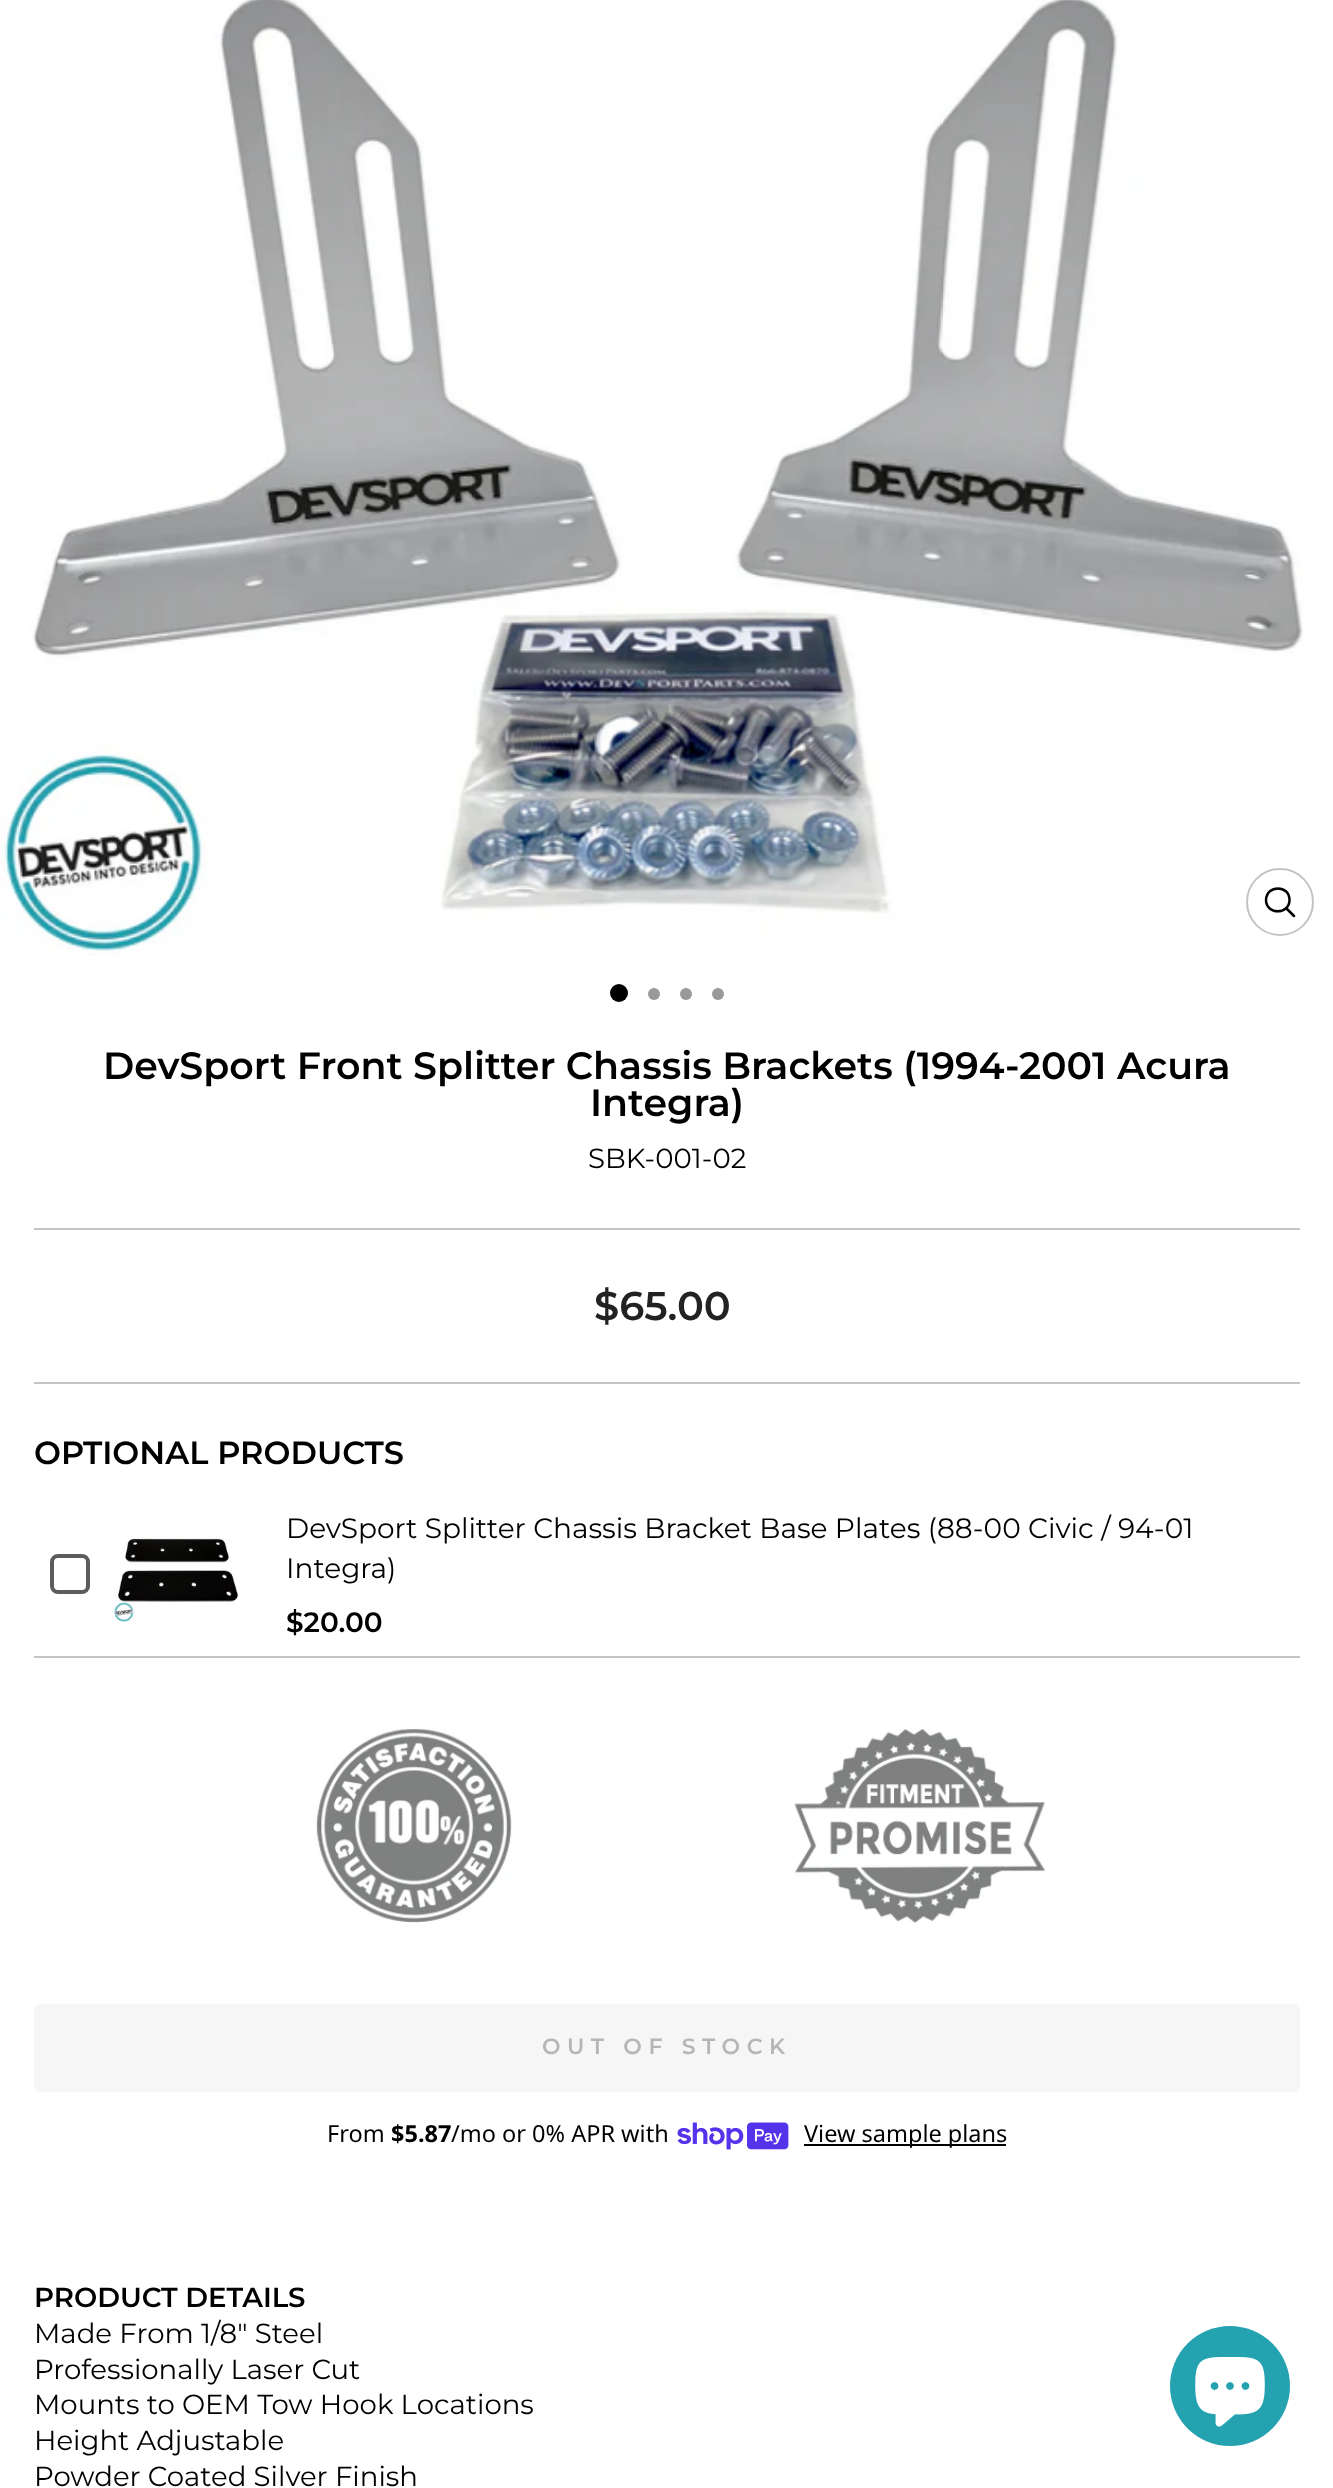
<!DOCTYPE html>
<meta charset="utf-8">
<style>body { margin: 0 } canvas { display: block }</style>
<canvas id="canvas" width="1333" height="2488"></canvas>
<img id="img1" src="img_01.png" hidden>
<img id="img2" src="img_02.png" hidden>
<img id="img3" src="img_03.png" hidden>
<img id="img4" src="img_04.png" hidden>
<img id="img5" src="img_05.png" hidden>
<img id="img6" src="img_06.png" hidden>
<script>
window.onload = function () {
	const canvas = document.getElementById("canvas");
	const ctx = canvas.getContext("2d");
	ctx.miterLimit = 4;
	ctx.fontKerning = "normal";
	function txt(s, x, y) {
		ctx.fillText(s, x, y);
	}
	function fill(x, y, w, h) {
		ctx.fillRect(x, y, w, h);
	}
	function round(x, y, w, h, r) {
		ctx.beginPath();
		ctx.roundRect(x, y, w, h, r);
		ctx.fill();
	}
	function img(id, x, y, w, h) {
		ctx.drawImage(document.getElementById(id), x, y, w, h);
	}

	ctx.fillStyle = "#FFFFFF";
	fill(0, 0, 1333, 2488);
	img("img1", 0, 0, 1303, 956);
	ctx.beginPath();
	ctx.arc(1280, 902, 33, 0, Math.PI * 2);
	ctx.strokeStyle = "#C4C4C4";
	ctx.lineWidth = 2;
	ctx.stroke();
	ctx.beginPath();
	ctx.moveTo(1289.5, 900);
	ctx.bezierCurveTo(1289.5, 915, 1266, 915, 1266, 900);
	ctx.bezierCurveTo(1266.5, 884.5, 1289.5, 884.5, 1289.5, 900);
	ctx.closePath();
	ctx.moveTo(1294, 916);
	ctx.lineTo(1286, 908);
	ctx.strokeStyle = "#000000";
	ctx.lineWidth = 2.5;
	ctx.lineCap = "round";
	ctx.lineJoin = "round";
	ctx.stroke();
	ctx.fillStyle = "#000000";
	ctx.beginPath();
	ctx.arc(619, 993, 9, 0, Math.PI * 2);
	ctx.fill();
	ctx.fillStyle = "#999999";
	ctx.beginPath();
	ctx.arc(654, 994, 6, 0, Math.PI * 2);
	ctx.fill();
	ctx.beginPath();
	ctx.arc(686, 994, 6, 0, Math.PI * 2);
	ctx.fill();
	ctx.beginPath();
	ctx.arc(718, 994, 6, 0, Math.PI * 2);
	ctx.fill();
	ctx.fillStyle = "#C4C4C4";
	fill(34, 1228, 1266, 2);
	fill(34, 1382, 1266, 2);
	ctx.beginPath();
	ctx.roundRect(52, 1556, 36, 36, 6);
	ctx.strokeStyle = "#5C5C5C";
	ctx.lineWidth = 4;
	ctx.lineJoin = "miter";
	ctx.stroke();
	img("img2", 114, 1537, 125, 85);
	fill(34, 1656, 1266, 2);
	img("img3", 316, 1728, 196, 195);
	img("img4", 794, 1729, 251, 194);
	ctx.fillStyle = "#F6F6F6";
	round(34, 2004, 1266, 88, 6);
	img("img5", 677, 2122, 112, 28);
	ctx.fillStyle = "#000000";
	fill(804, 2144, 202, 2);
	ctx.fillStyle = "#24A2B0";
	ctx.beginPath();
	ctx.arc(1230, 2386, 60, 0, Math.PI * 2);
	ctx.fill();
	img("img6", 1195, 2357, 70, 70);
	ctx.font = "600 37.95px Montserrat";
	ctx.fillStyle = "#000000";
	txt("DevSport Front Splitter Chassis Brackets (1994-2001 Acura", 103, 1079);
	txt("Integra)", 590, 1116);
	ctx.font = "27.6px Montserrat";
	txt("SBK-001-02", 588, 1168);
	ctx.font = "600 40px Montserrat";
	ctx.fillStyle = "#222222";
	txt("$65.00", 594, 1320);
	ctx.font = "600 32px Montserrat";
	ctx.fillStyle = "#000000";
	txt("OPTIONAL PRODUCTS", 34, 1464);
	ctx.font = "28px Montserrat";
	txt("DevSport Splitter Chassis Bracket Base Plates (88-00 Civic / 94-01", 286, 1538);
	txt("Integra)", 286, 1578);
	ctx.font = "600 28px Montserrat";
	txt("$20.00", 286, 1632);
	ctx.letterSpacing = "6.6px";
	ctx.font = "600 22px Montserrat";
	ctx.fillStyle = "#B6B6B6";
	txt("OUT OF STOCK", 542, 2054);
	ctx.letterSpacing = "0px";
	ctx.font = "23.5px Noto Sans";
	ctx.fillStyle = "#000000";
	txt("From", 327, 2142);
	ctx.font = "bold 23.5px Noto Sans";
	txt("$5.87", 391, 2142);
	ctx.font = "23.5px Noto Sans";
	txt("/mo or 0% APR with", 451, 2142);
	txt("View sample plans", 804, 2142);
	ctx.font = "600 27.6px Montserrat";
	txt("PRODUCT DETAILS", 34, 2307);
	ctx.font = "27.6px Montserrat";
	txt("Made From 1/8\" Steel", 34, 2343);
	txt("Professionally Laser Cut", 34, 2379);
	txt("Mounts to OEM Tow Hook Locations", 34, 2414);
	txt("Height Adjustable", 34, 2450);
	txt("Powder Coated Silver Finish", 34, 2486);
};
</script>
